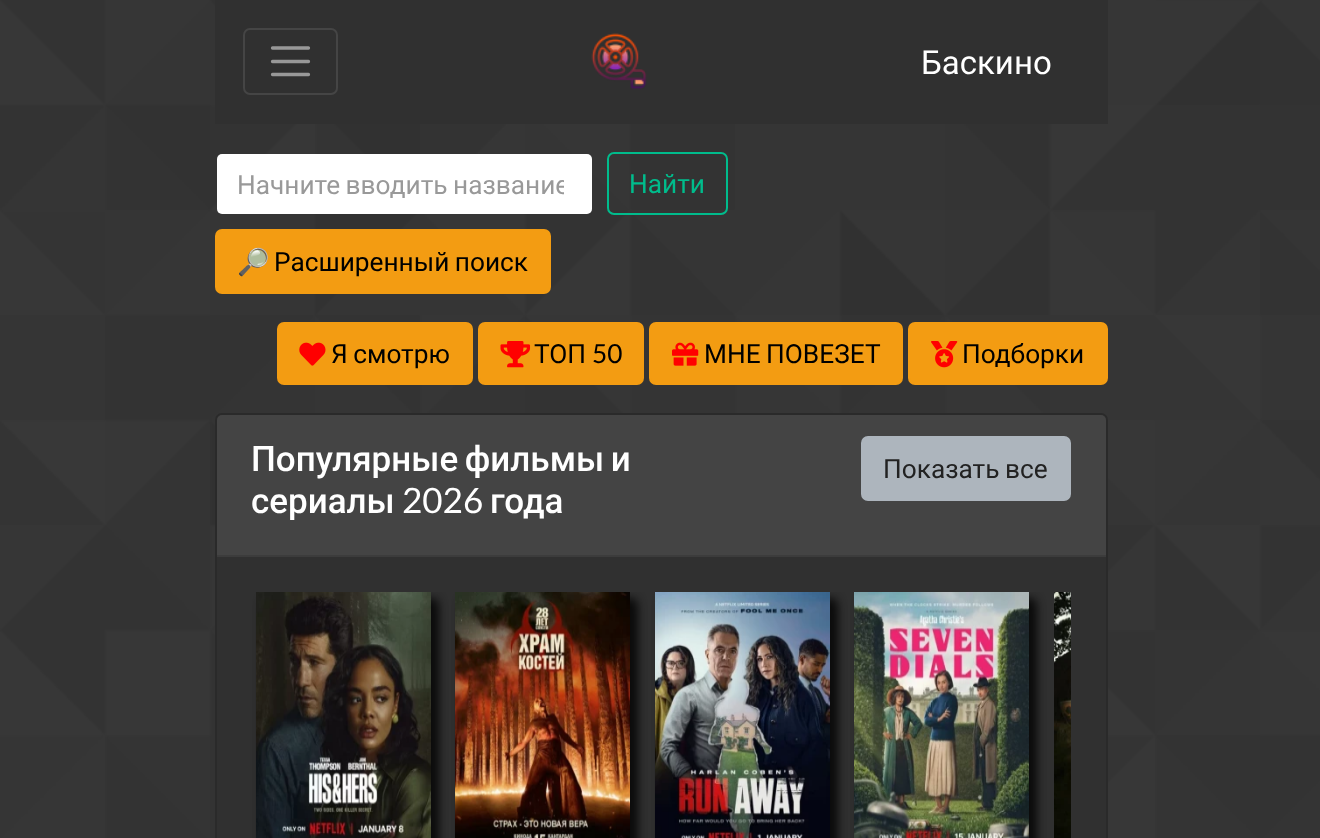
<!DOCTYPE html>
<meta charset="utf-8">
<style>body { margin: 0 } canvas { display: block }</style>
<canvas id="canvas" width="1320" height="838"></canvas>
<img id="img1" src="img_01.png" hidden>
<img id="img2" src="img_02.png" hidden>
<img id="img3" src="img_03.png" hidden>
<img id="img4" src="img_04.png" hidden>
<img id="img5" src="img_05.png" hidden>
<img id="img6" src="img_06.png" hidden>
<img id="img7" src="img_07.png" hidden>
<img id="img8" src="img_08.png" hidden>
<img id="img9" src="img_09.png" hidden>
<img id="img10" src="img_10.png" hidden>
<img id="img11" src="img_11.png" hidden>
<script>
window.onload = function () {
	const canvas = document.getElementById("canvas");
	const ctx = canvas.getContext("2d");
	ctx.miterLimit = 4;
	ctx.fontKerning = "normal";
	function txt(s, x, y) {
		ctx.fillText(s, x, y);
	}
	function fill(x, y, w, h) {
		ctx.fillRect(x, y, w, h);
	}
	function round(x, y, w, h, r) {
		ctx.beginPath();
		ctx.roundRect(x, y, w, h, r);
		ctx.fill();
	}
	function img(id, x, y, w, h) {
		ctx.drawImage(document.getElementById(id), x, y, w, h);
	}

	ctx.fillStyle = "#FFFFFF";
	fill(0, 0, 1320, 838);
	img("img1", 0, 0, 1320, 838);
	ctx.fillStyle = "#303030";
	fill(215, 0, 893, 124);
	ctx.beginPath();
	ctx.roundRect(244, 29, 93, 65, 6);
	ctx.strokeStyle = "#454545";
	ctx.lineWidth = 2;
	ctx.stroke();
	ctx.beginPath();
	ctx.moveTo(272.5, 48);
	ctx.lineTo(308.5, 48);
	ctx.moveTo(272.5, 61.5);
	ctx.lineTo(308.5, 61.5);
	ctx.moveTo(272.5, 74.5);
	ctx.lineTo(308.5, 74.5);
	ctx.strokeStyle = "#989898";
	ctx.lineWidth = 3.3;
	ctx.lineCap = "round";
	ctx.stroke();
	img("img2", 591, 33, 56, 57);
	ctx.fillStyle = "#FFFFFF";
	round(217, 154, 375, 60, 5);
	ctx.beginPath();
	ctx.roundRect(608, 153, 119, 61, 6);
	ctx.strokeStyle = "#00BC8C";
	ctx.lineWidth = 2;
	ctx.stroke();
	ctx.fillStyle = "#F39C12";
	ctx.beginPath();
	ctx.roundRect(216, 230, 334, 63, 6);
	ctx.fill();
	ctx.strokeStyle = "#F39C12";
	ctx.stroke();
	ctx.beginPath();
	ctx.roundRect(278, 323, 194, 61, 6);
	ctx.fill();
	ctx.stroke();
	img("img3", 299, 342, 27, 24);
	ctx.beginPath();
	ctx.roundRect(479, 323, 164, 61, 6);
	ctx.fill();
	ctx.stroke();
	img("img4", 500, 341, 31, 27);
	ctx.beginPath();
	ctx.roundRect(650, 323, 252, 61, 6);
	ctx.fill();
	ctx.stroke();
	img("img5", 672, 342, 27, 24);
	ctx.beginPath();
	ctx.roundRect(909, 323, 198, 61, 6);
	ctx.fill();
	ctx.stroke();
	img("img6", 931, 341, 27, 27);
	ctx.fillStyle = "#303030";
	ctx.beginPath();
	ctx.roundRect(216, 414, 891, 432, 6);
	ctx.fill();
	ctx.strokeStyle = "#2A2A2A";
	ctx.stroke();
	ctx.fillStyle = "#444444";
	ctx.beginPath();
	ctx.roundRect(217, 415, 889, 142, [5, 5, 0, 0]);
	ctx.fill();
	ctx.fillStyle = "#3C3C3C";
	fill(217, 555, 889, 2);
	ctx.fillStyle = "#ADB5BD";
	ctx.beginPath();
	ctx.roundRect(862, 437, 208, 63, 6);
	ctx.fill();
	ctx.strokeStyle = "#ADB5BD";
	ctx.stroke();
	ctx.save();
	ctx.beginPath();
	ctx.rect(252, 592, 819, 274);
	ctx.clip();
	ctx.fillStyle = "rgba(0, 0, 0, 0.54)";
	ctx.filter = "blur(5px)";
	ctx.beginPath();
	ctx.roundRect(263, 599, 175, 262, 9);
	ctx.fill();
	ctx.filter = "none";
	ctx.filter = "blur(5px)";
	ctx.beginPath();
	ctx.rect(263, 599, 175, 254);
	ctx.fill();
	ctx.filter = "none";
	ctx.restore();
	img("img7", 256, 592, 175, 246);
	ctx.save();
	ctx.beginPath();
	ctx.rect(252, 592, 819, 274);
	ctx.clip();
	ctx.fillStyle = "rgba(0, 0, 0, 0.54)";
	ctx.filter = "blur(5px)";
	ctx.beginPath();
	ctx.roundRect(462, 599, 175, 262, 9);
	ctx.fill();
	ctx.filter = "none";
	ctx.filter = "blur(5px)";
	ctx.beginPath();
	ctx.rect(462, 599, 175, 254);
	ctx.fill();
	ctx.filter = "none";
	ctx.restore();
	img("img8", 455, 592, 175, 246);
	ctx.save();
	ctx.beginPath();
	ctx.rect(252, 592, 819, 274);
	ctx.clip();
	ctx.fillStyle = "rgba(0, 0, 0, 0.54)";
	ctx.filter = "blur(5px)";
	ctx.beginPath();
	ctx.roundRect(662, 599, 175, 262, 9);
	ctx.fill();
	ctx.filter = "none";
	ctx.filter = "blur(5px)";
	ctx.beginPath();
	ctx.rect(662, 599, 175, 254);
	ctx.fill();
	ctx.filter = "none";
	ctx.restore();
	img("img9", 655, 592, 175, 246);
	ctx.save();
	ctx.beginPath();
	ctx.rect(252, 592, 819, 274);
	ctx.clip();
	ctx.fillStyle = "rgba(0, 0, 0, 0.54)";
	ctx.filter = "blur(5px)";
	ctx.beginPath();
	ctx.roundRect(861, 599, 175, 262, 9);
	ctx.fill();
	ctx.filter = "none";
	ctx.filter = "blur(5px)";
	ctx.beginPath();
	ctx.rect(861, 599, 175, 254);
	ctx.fill();
	ctx.filter = "none";
	ctx.restore();
	img("img10", 854, 592, 175, 246);
	img("img11", 1054, 592, 17, 246);
	ctx.font = "33px Roboto";
	ctx.fillStyle = "#FFFFFF";
	txt("Баскино", 921, 74);
	ctx.save();
	ctx.beginPath();
	ctx.rect(238, 168, 326, 33);
	ctx.clip();
	ctx.wordSpacing = "-1px";
	ctx.font = "26.25px Roboto";
	ctx.fillStyle = "#999999";
	txt("Начните вводить название", 237, 194);
	ctx.restore();
	ctx.font = "26.25px Roboto";
	ctx.fillStyle = "#00BC8C";
	txt("Найти", 629, 193);
	ctx.font = "26.25px Noto Color Emoji";
	ctx.fillStyle = "#000000";
	txt("🔎", 237, 271);
	ctx.wordSpacing = "-1px";
	ctx.font = "26.25px Roboto";
	txt("Расширенный поиск", 274, 271);
	txt("Я смотрю", 331, 363);
	ctx.wordSpacing = "0px";
	txt("ТОП", 534, 363);
	ctx.font = "26.25px Lato";
	txt("50", 592, 363);
	ctx.wordSpacing = "-1px";
	ctx.font = "26.25px Roboto";
	txt("МНЕ ПОВЕЗЕТ", 704, 363);
	ctx.wordSpacing = "0px";
	txt("Подборки", 962, 363);
	ctx.wordSpacing = "-2px";
	ctx.font = "500 35px Roboto";
	ctx.fillStyle = "#FFFFFF";
	txt("Популярные фильмы и", 251, 471);
	ctx.wordSpacing = "0px";
	txt("сериалы", 251, 513);
	ctx.font = "35px Lato";
	txt("2026", 402, 513);
	ctx.font = "500 35px Roboto";
	txt("года", 490, 513);
	ctx.wordSpacing = "-1px";
	ctx.font = "26.25px Roboto";
	ctx.fillStyle = "#222222";
	txt("Показать все", 883, 478);
};
</script>
